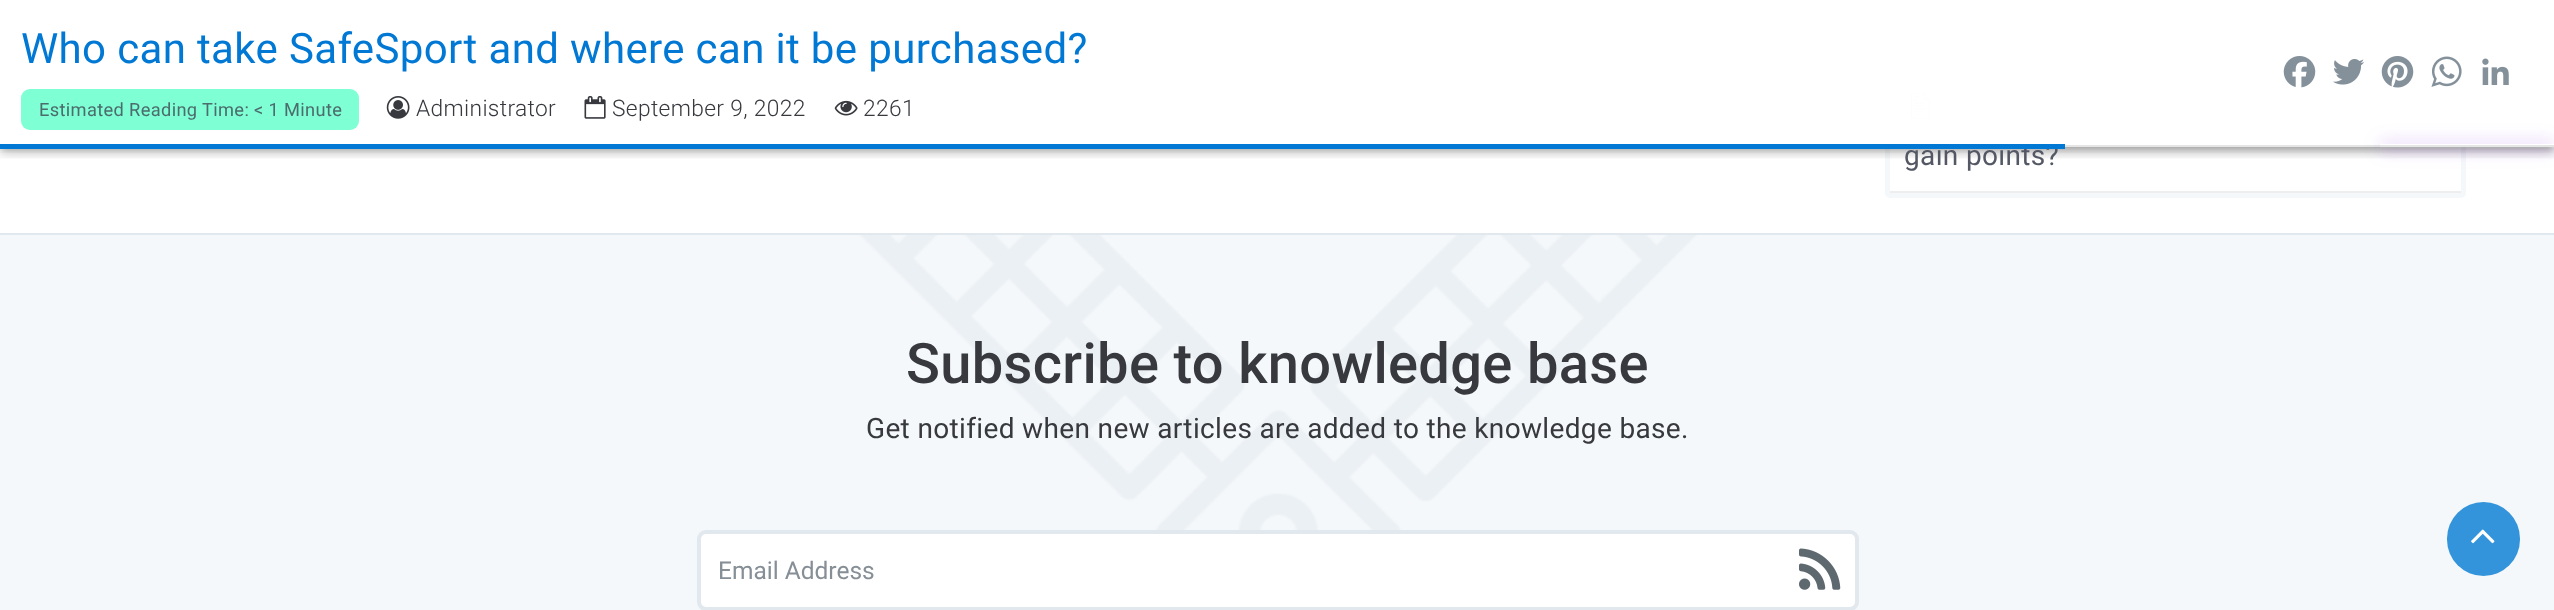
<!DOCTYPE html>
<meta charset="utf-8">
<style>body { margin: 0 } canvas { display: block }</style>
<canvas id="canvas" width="2554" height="610"></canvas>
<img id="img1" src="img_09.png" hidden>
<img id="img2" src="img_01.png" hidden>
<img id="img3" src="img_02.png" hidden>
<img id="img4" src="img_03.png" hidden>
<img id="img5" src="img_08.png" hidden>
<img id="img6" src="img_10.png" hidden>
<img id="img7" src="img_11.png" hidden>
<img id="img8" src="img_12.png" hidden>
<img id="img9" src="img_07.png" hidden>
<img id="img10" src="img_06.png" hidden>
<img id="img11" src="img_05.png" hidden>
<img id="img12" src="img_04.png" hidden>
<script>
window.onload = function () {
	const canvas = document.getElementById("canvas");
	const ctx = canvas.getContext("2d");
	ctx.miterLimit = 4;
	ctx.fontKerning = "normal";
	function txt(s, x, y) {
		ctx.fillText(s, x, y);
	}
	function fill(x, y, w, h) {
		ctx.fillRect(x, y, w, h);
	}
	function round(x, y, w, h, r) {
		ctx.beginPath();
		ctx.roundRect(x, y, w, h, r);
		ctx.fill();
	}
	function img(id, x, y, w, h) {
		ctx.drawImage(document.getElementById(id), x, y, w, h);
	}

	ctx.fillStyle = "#FFFFFF";
	fill(0, 0, 2554, 610);
	ctx.beginPath();
	ctx.roundRect(1887.5, -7.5, 576, 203, 2.5);
	ctx.strokeStyle = "#F5F8FA";
	ctx.lineWidth = 5;
	ctx.stroke();
	ctx.fillStyle = "#EEEEEE";
	fill(1890, 70, 571, 2);
	img("img1", 1910, 92, 20, 28);
	ctx.save();
	ctx.beginPath();
	ctx.rect(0, 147, 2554, 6);
	ctx.clip();
	ctx.fillStyle = "rgba(0, 0, 0, 0.2)";
	ctx.filter = "blur(3.5px)";
	ctx.beginPath();
	ctx.rect(2, 5, 2551, 144);
	ctx.fill();
	ctx.filter = "none";
	ctx.restore();
	ctx.save();
	ctx.beginPath();
	ctx.rect(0, 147, 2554, 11);
	ctx.clip();
	ctx.fillStyle = "rgba(0, 0, 0, 0.12)";
	ctx.filter = "blur(9px)";
	ctx.beginPath();
	ctx.rect(0, 2, 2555, 147);
	ctx.fill();
	ctx.filter = "none";
	ctx.restore();
	ctx.save();
	ctx.beginPath();
	ctx.rect(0, 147, 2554, 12);
	ctx.clip();
	ctx.fillStyle = "rgba(0, 0, 0, 0.14)";
	ctx.filter = "blur(4.5px)";
	ctx.beginPath();
	ctx.rect(0, 7, 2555, 147);
	ctx.fill();
	ctx.filter = "none";
	ctx.restore();
	ctx.fillStyle = "#E5E5E5";
	fill(2065, 145, 489, 2);
	ctx.fillStyle = "#7FFFD4";
	round(21, 89, 338, 41, 9);
	img("img2", 386, 96, 24, 23);
	img("img3", 584, 96, 22, 23);
	img("img4", 834, 100, 24, 16);
	img("img5", 2482, 58, 27, 27);
	ctx.fillStyle = "#EEEEEE";
	fill(1890, 191, 571, 2);
	ctx.fillStyle = "#F5F8FA";
	fill(0, 235, 2554, 375);
	img("img6", 859, 235, 839, 295);
	ctx.fillStyle = "#E1E8EE";
	fill(0, 233, 2554, 2);
	ctx.fillStyle = "#FFFFFF";
	ctx.beginPath();
	ctx.roundRect(699, 532, 1158, 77, 7);
	ctx.fill();
	ctx.strokeStyle = "#E1E8EE";
	ctx.lineWidth = 4;
	ctx.stroke();
	img("img7", 1799, 548, 42, 42);
	ctx.fillStyle = "#3394DB";
	round(2447, 502, 73, 74, 36.5);
	img("img8", 2471, 529, 24, 15);
	ctx.letterSpacing = "0.35px";
	ctx.font = "42px Roboto";
	ctx.fillStyle = "#0078D4";
	txt("Who can take SafeSport and where can it be purchased?", 21, 63);
	ctx.font = "18.25px Roboto";
	ctx.fillStyle = "#4C6C6D";
	txt("Estimated Reading Time: < 1 Minute", 39, 116);
	ctx.font = "300 22.75px Roboto";
	ctx.fillStyle = "#37393E";
	txt("Administrator", 416, 116);
	txt("September 9, 2022", 612, 116);
	txt("2261", 863, 116);
	ctx.font = "28px Roboto";
	ctx.fillStyle = "#545764";
	txt("gain points?", 1904, 165);
	ctx.fillStyle = "rgba(255, 255, 255, 0.99)";
	fill(1885, 0, 581, 145);
	ctx.save();
	ctx.beginPath();
	ctx.moveTo(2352, 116);
	ctx.lineTo(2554, 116);
	ctx.lineTo(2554, 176);
	ctx.lineTo(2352, 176);
	ctx.closePath();
	ctx.moveTo(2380, 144);
	ctx.lineTo(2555, 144);
	ctx.lineTo(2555, 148);
	ctx.lineTo(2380, 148);
	ctx.closePath();
	ctx.clip("evenodd");
	ctx.fillStyle = "rgba(138, 43, 226, 0.5)";
	ctx.filter = "blur(9px)";
	ctx.beginPath();
	ctx.rect(2380, 144, 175, 4);
	ctx.fill();
	ctx.filter = "none";
	ctx.restore();
	ctx.fillStyle = "#0078D4";
	fill(0, 144, 2065, 5);
	img("img9", 2431, 56, 31, 31);
	img("img10", 2381, 56, 33, 32);
	img("img11", 2333, 59, 31, 26);
	img("img12", 2283, 56, 33, 32);
	ctx.font = "500 56px Roboto";
	ctx.fillStyle = "#37393E";
	txt("Subscribe to knowledge base", 906, 383);
	ctx.font = "28px Roboto";
	txt("Get notified when new articles are added to the knowledge base.", 866, 438);
	ctx.letterSpacing = "0px";
	ctx.font = "24.5px Roboto";
	ctx.fillStyle = "#868E96";
	txt("Email Address", 718, 579);
};
</script>
